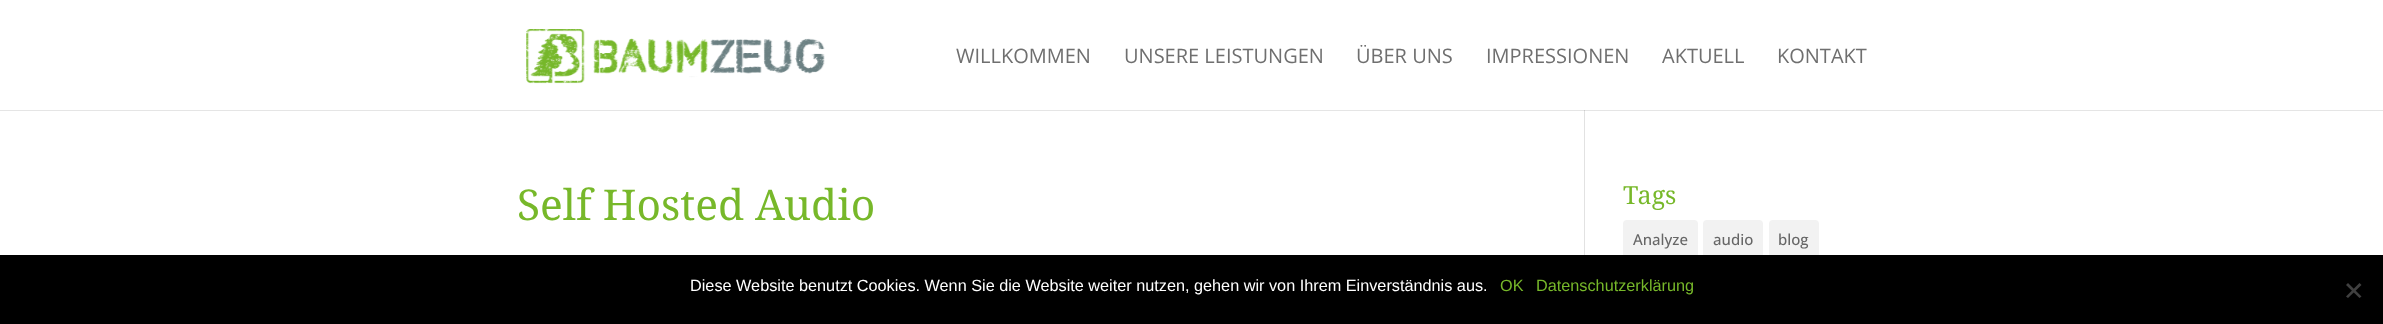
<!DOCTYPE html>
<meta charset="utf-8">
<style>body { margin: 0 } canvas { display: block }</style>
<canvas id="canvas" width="2383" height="324"></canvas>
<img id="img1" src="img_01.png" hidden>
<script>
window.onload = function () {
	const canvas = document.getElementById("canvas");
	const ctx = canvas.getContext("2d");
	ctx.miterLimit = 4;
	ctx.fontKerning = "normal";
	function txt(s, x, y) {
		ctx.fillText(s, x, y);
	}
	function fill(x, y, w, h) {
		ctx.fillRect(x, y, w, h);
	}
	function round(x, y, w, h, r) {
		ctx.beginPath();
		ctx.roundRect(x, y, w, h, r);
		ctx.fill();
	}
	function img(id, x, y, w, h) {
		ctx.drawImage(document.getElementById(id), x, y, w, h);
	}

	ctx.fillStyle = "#FFFFFF";
	fill(0, 0, 2383, 324);
	ctx.fillStyle = "#E2E2E2";
	fill(1584, 110, 1, 145);
	ctx.fillStyle = "rgba(0, 0, 0, 0.1)";
	ctx.beginPath();
	ctx.moveTo(0, 110);
	ctx.lineTo(0, 111);
	ctx.lineTo(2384, 111);
	ctx.lineTo(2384, 1);
	ctx.lineTo(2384, 110);
	ctx.closePath();
	ctx.fill();
	img("img1", 526, 29, 299, 55);
	ctx.fillStyle = "#F2F2F2";
	round(1623, 220, 75, 39, 4);
	round(1703, 220, 60, 39, 4);
	round(1769, 220, 50, 39, 4);
	ctx.fillStyle = "#000000";
	fill(0, 255, 2383, 69);
	ctx.fillStyle = "#404040";
	ctx.beginPath();
	ctx.moveTo(2359.5, 283);
	ctx.lineTo(2361.5, 285);
	ctx.lineTo(2348, 298);
	ctx.lineTo(2346, 296.5);
	ctx.closePath();
	ctx.fill();
	ctx.beginPath();
	ctx.moveTo(2346, 285);
	ctx.lineTo(2348, 283);
	ctx.lineTo(2361.5, 296.5);
	ctx.lineTo(2359.5, 298);
	ctx.closePath();
	ctx.fill();
	ctx.font = "20px Open Sans";
	ctx.fillStyle = "#6F6F6F";
	txt("WILLKOMMEN", 956, 63);
	txt("UNSERE LEISTUNGEN", 1124, 63);
	txt("ÜBER UNS", 1356, 63);
	txt("IMPRESSIONEN", 1486, 63);
	txt("AKTUELL", 1662, 63);
	txt("KONTAKT", 1777, 63);
	ctx.font = "42.5px Noto Serif";
	ctx.fillStyle = "#77B82A";
	txt("Self Hosted Audio", 517, 220);
	ctx.font = "25px Noto Serif";
	txt("Tags", 1623, 204);
	ctx.font = "500 15px Open Sans";
	ctx.fillStyle = "#666666";
	txt("Analyze", 1633, 245);
	txt("audio", 1713, 245);
	txt("blog", 1778, 245);
	ctx.font = "16.25px Liberation Sans";
	ctx.fillStyle = "#FFFFFF";
	txt("Diese Website benutzt Cookies. Wenn Sie die Website weiter nutzen, gehen wir von Ihrem Einverständnis aus.", 690, 291);
	ctx.fillStyle = "#77B82A";
	txt("OK", 1500, 291);
	txt("Datenschutzerklärung", 1536, 291);
};
</script>
